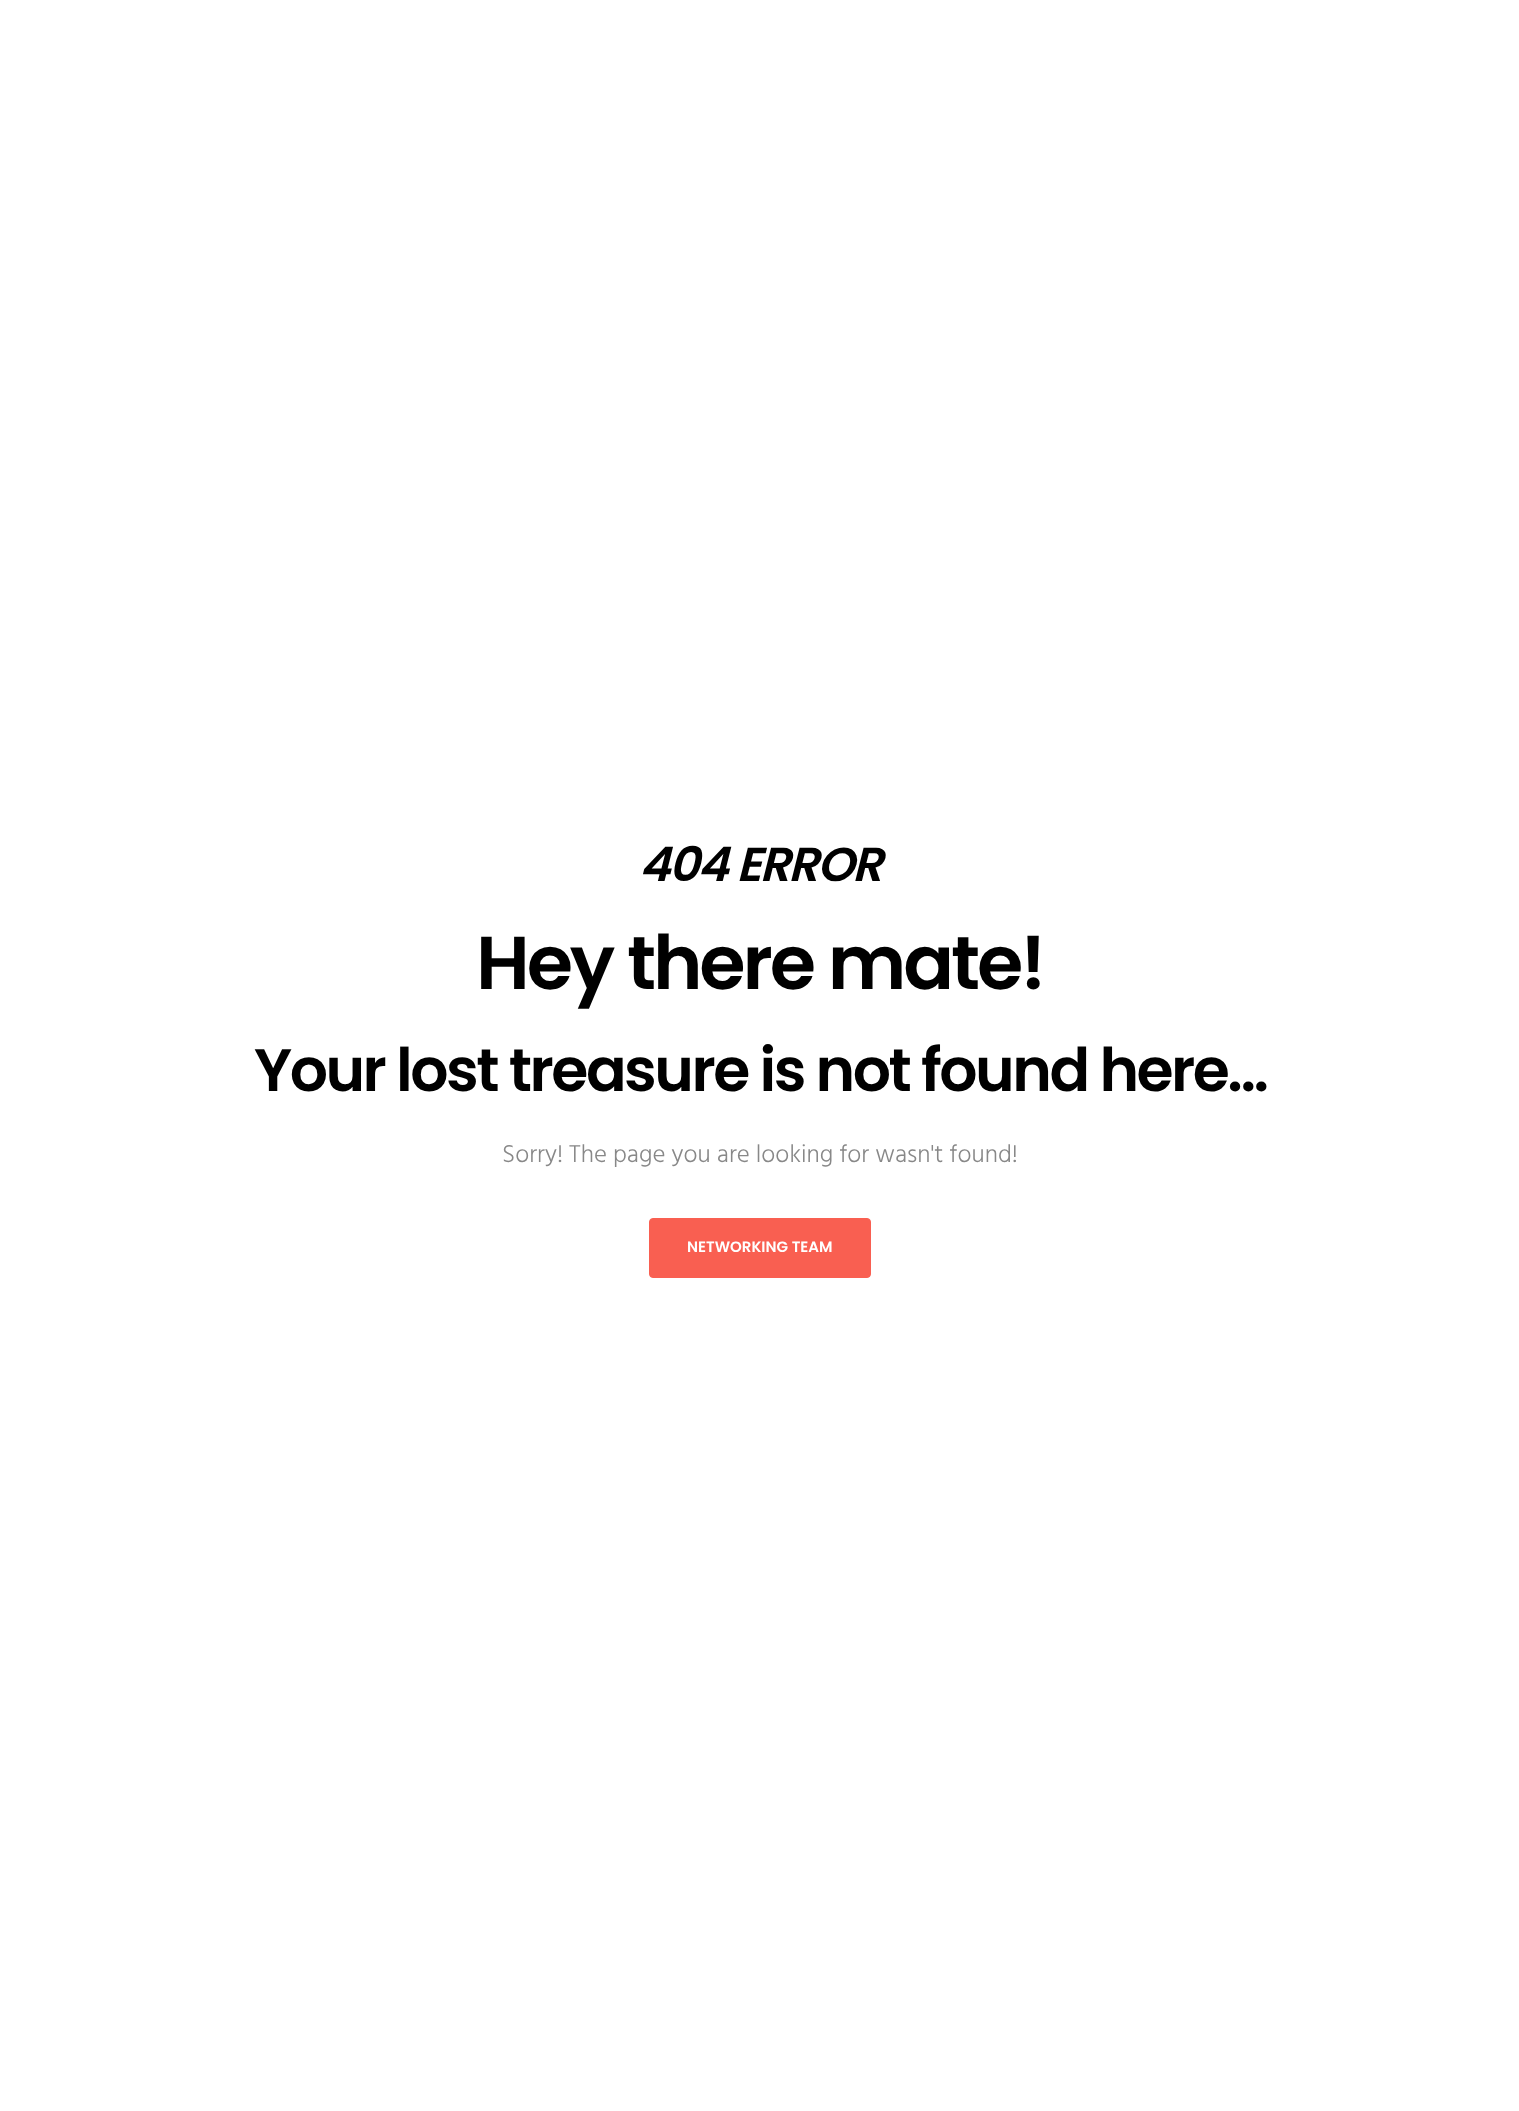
<!DOCTYPE html>
<meta charset="utf-8">
<style>body { margin: 0 } canvas { display: block }</style>
<canvas id="canvas" width="1519" height="2111"></canvas>
<script>
window.onload = function () {
	const canvas = document.getElementById("canvas");
	const ctx = canvas.getContext("2d");
	ctx.miterLimit = 4;
	ctx.fontKerning = "normal";
	function txt(s, x, y) {
		ctx.fillText(s, x, y);
	}
	function fill(x, y, w, h) {
		ctx.fillRect(x, y, w, h);
	}

	ctx.fillStyle = "#FFFFFF";
	fill(0, 0, 1519, 2111);
	ctx.fillStyle = "#F95F51";
	ctx.beginPath();
	ctx.roundRect(649.5, 1218.5, 221, 59, 3.5);
	ctx.fill();
	ctx.strokeStyle = "#F95F51";
	ctx.stroke();
	ctx.letterSpacing = "-1.9px";
	ctx.font = "italic 600 47.5px Poppins";
	ctx.fillStyle = "#000000";
	txt("404 ERROR", 639, 881);
	ctx.letterSpacing = "-3.1px";
	ctx.font = "600 75px Poppins";
	txt("Hey there mate!", 476, 989);
	ctx.letterSpacing = "-2.5px";
	ctx.font = "600 60px Poppins";
	txt("Your lost treasure is not found here...", 254, 1091);
	ctx.letterSpacing = "0px";
	ctx.font = "300 25px Hind";
	ctx.fillStyle = "#888888";
	txt("Sorry! The page you are looking for wasn't found!", 502, 1162);
	ctx.font = "600 15px Poppins";
	ctx.fillStyle = "#FFFFFF";
	txt("NETWORKING TEAM", 687, 1252);
};
</script>
